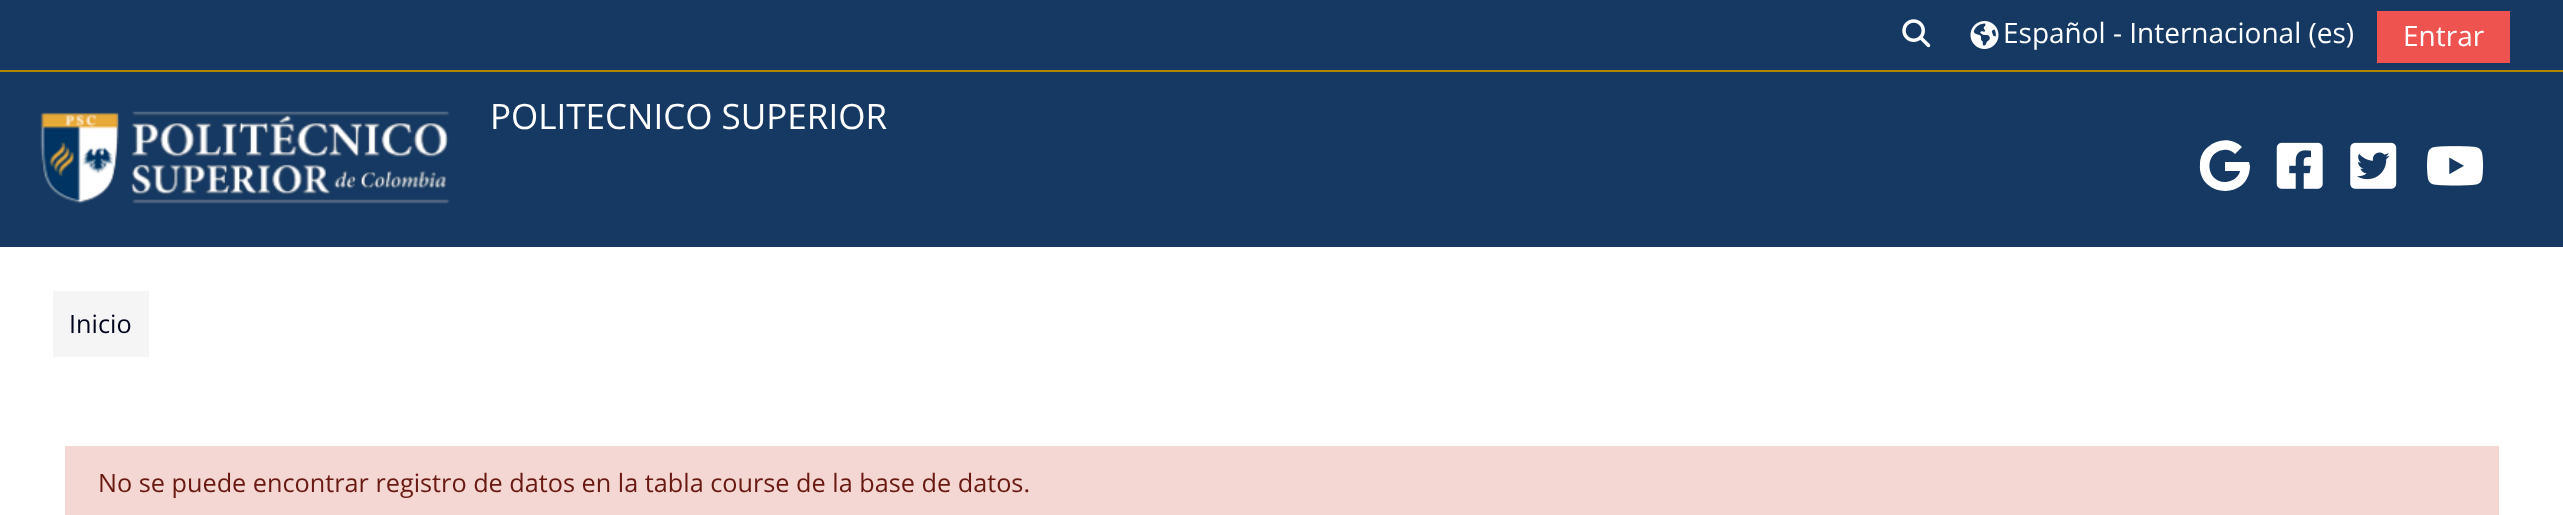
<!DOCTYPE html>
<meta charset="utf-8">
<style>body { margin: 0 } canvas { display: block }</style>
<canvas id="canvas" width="2563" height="515"></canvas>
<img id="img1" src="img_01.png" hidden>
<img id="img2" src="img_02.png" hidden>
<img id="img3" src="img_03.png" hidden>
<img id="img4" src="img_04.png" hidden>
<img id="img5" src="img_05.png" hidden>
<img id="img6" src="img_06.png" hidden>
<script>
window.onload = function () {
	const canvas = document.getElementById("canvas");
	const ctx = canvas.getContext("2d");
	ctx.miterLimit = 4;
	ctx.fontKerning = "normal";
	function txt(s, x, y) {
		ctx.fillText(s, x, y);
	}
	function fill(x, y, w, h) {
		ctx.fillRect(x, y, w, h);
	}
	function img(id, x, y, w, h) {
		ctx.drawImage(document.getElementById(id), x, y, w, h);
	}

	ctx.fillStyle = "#FFFFFF";
	fill(0, 0, 2563, 515);
	ctx.fillStyle = "#153962";
	fill(0, 0, 2563, 247);
	ctx.fillStyle = "#AD8800";
	fill(0, 70, 2563, 2);
	img("img1", 1902, 19, 29, 29);
	img("img2", 1970, 21, 29, 28);
	ctx.fillStyle = "#EF5350";
	fill(2377, 11, 133, 52);
	img("img3", 40, 111, 410, 93);
	ctx.fillStyle = "#FFFFFF";
	ctx.beginPath();
	ctx.moveTo(2250, 166);
	ctx.bezierCurveTo(2249, 202, 2197, 197, 2200, 164);
	ctx.bezierCurveTo(2200, 157, 2203, 151, 2208, 147);
	ctx.bezierCurveTo(2218, 138, 2233, 138, 2242, 147);
	ctx.lineTo(2235, 154);
	ctx.bezierCurveTo(2232, 151, 2228, 149, 2223, 150);
	ctx.bezierCurveTo(2203, 153, 2206, 183, 2226, 182);
	ctx.bezierCurveTo(2233, 181, 2239, 177, 2240, 171);
	ctx.lineTo(2225, 171);
	ctx.lineTo(2225, 162);
	ctx.lineTo(2249, 162);
	ctx.closePath();
	ctx.fill();
	img("img4", 2276, 142, 47, 47);
	img("img5", 2350, 142, 47, 47);
	img("img6", 2427, 146, 57, 40);
	ctx.fillStyle = "#F5F5F5";
	fill(53, 291, 96, 66);
	ctx.fillStyle = "#F4D6D2";
	fill(65, 446, 2434, 69);
	ctx.font = "28px Open Sans";
	ctx.fillStyle = "#FFFFFF";
	txt("Español - Internacional (es)", 2003, 43);
	txt("Entrar", 2403, 46);
	ctx.font = "35px Open Sans";
	txt("POLITECNICO SUPERIOR", 490, 129);
	ctx.font = "25.25px Open Sans";
	ctx.fillStyle = "#00031E";
	txt("Inicio", 69, 333);
	ctx.fillStyle = "#691911";
	txt("No se puede encontrar registro de datos en la tabla course de la base de datos.", 98, 492);
};
</script>
